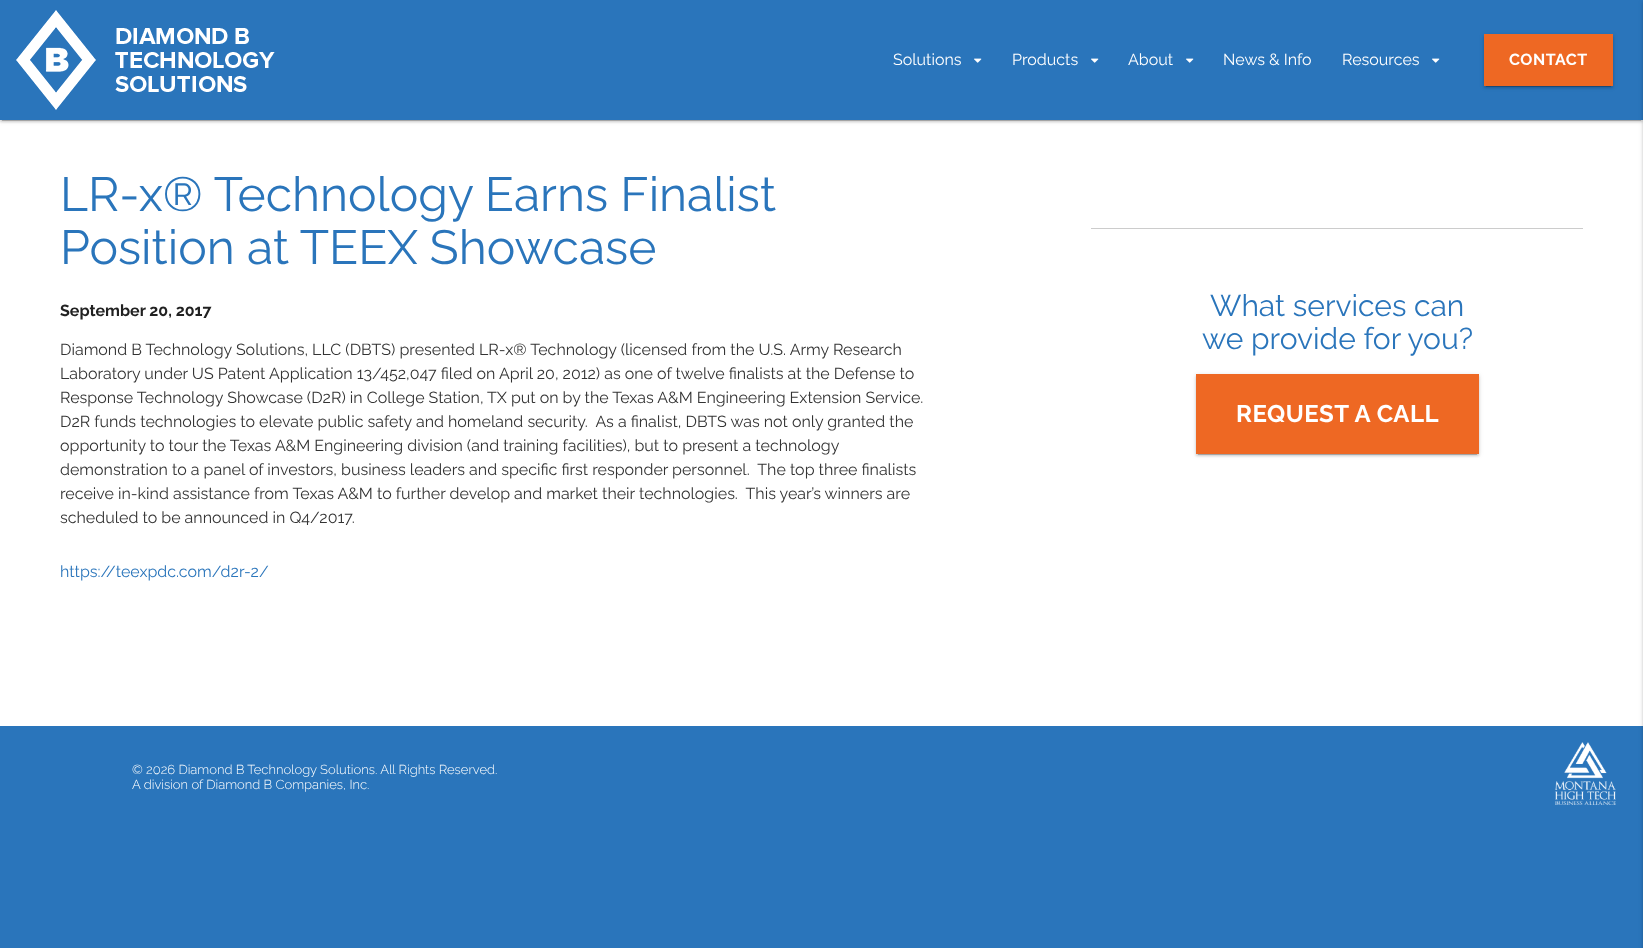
<!DOCTYPE html>
<meta charset="utf-8">
<style>body { margin: 0 } canvas { display: block }</style>
<canvas id="canvas" width="1643" height="948"></canvas>
<img id="img1" src="img_01.png" hidden>
<img id="img2" src="img_02.png" hidden>
<img id="img3" src="img_03.png" hidden>
<script>
window.onload = function () {
	const canvas = document.getElementById("canvas");
	const ctx = canvas.getContext("2d");
	ctx.miterLimit = 4;
	ctx.fontKerning = "normal";
	function txt(s, x, y) {
		ctx.fillText(s, x, y);
	}
	function fill(x, y, w, h) {
		ctx.fillRect(x, y, w, h);
	}
	function img(id, x, y, w, h) {
		ctx.drawImage(document.getElementById(id), x, y, w, h);
	}

	ctx.fillStyle = "#2A75BB";
	fill(0, 0, 1643, 948);
	ctx.fillStyle = "#FFFFFF";
	fill(0, 120, 1643, 606);
	ctx.fillStyle = "rgba(0, 0, 0, 0.2)";
	ctx.filter = "blur(0.5px)";
	ctx.beginPath();
	ctx.rect(2, 5, 1639, 116);
	ctx.fill();
	ctx.filter = "none";
	ctx.fillStyle = "rgba(0, 0, 0, 0.12)";
	ctx.filter = "blur(2.5px)";
	ctx.beginPath();
	ctx.rect(0, 1, 1643, 120);
	ctx.fill();
	ctx.filter = "none";
	ctx.fillStyle = "rgba(0, 0, 0, 0.14)";
	ctx.filter = "blur(1px)";
	ctx.beginPath();
	ctx.rect(0, 2, 1643, 120);
	ctx.fill();
	ctx.filter = "none";
	ctx.fillStyle = "#2A75BB";
	fill(0, 0, 1643, 120);
	img("img1", 16, 10, 259, 100);
	img("img2", 974, 58, 8, 5);
	img("img2", 1091, 58, 8, 5);
	img("img2", 1186, 58, 8, 5);
	img("img2", 1432, 58, 8, 5);
	ctx.fillStyle = "rgba(0, 0, 0, 0.2)";
	ctx.filter = "blur(0.5px)";
	ctx.beginPath();
	ctx.rect(1486, 39, 125, 48);
	ctx.fill();
	ctx.filter = "none";
	ctx.fillStyle = "rgba(0, 0, 0, 0.12)";
	ctx.filter = "blur(2.5px)";
	ctx.beginPath();
	ctx.rect(1484, 35, 129, 52);
	ctx.fill();
	ctx.filter = "none";
	ctx.fillStyle = "rgba(0, 0, 0, 0.14)";
	ctx.filter = "blur(1px)";
	ctx.beginPath();
	ctx.rect(1484, 36, 129, 52);
	ctx.fill();
	ctx.filter = "none";
	ctx.fillStyle = "#EE6823";
	fill(1484, 34, 129, 52);
	ctx.fillStyle = "rgba(0, 0, 0, 0.12)";
	ctx.filter = "blur(2.5px)";
	ctx.beginPath();
	ctx.rect(1643, 1, 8, 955);
	ctx.fill();
	ctx.filter = "none";
	ctx.fillStyle = "rgba(0, 0, 0, 0.14)";
	ctx.filter = "blur(1px)";
	ctx.beginPath();
	ctx.rect(1643, 2, 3, 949);
	ctx.fill();
	ctx.filter = "none";
	ctx.fillStyle = "#CCCCCC";
	fill(1091, 228, 492, 1);
	ctx.fillStyle = "rgba(0, 0, 0, 0.2)";
	ctx.filter = "blur(0.5px)";
	ctx.beginPath();
	ctx.rect(1198, 379, 279, 76);
	ctx.fill();
	ctx.filter = "none";
	ctx.fillStyle = "rgba(0, 0, 0, 0.12)";
	ctx.filter = "blur(2.5px)";
	ctx.beginPath();
	ctx.rect(1196, 375, 283, 80);
	ctx.fill();
	ctx.filter = "none";
	ctx.fillStyle = "rgba(0, 0, 0, 0.14)";
	ctx.filter = "blur(1px)";
	ctx.beginPath();
	ctx.rect(1196, 376, 283, 80);
	ctx.fill();
	ctx.filter = "none";
	ctx.fillStyle = "#EE6823";
	fill(1196, 374, 283, 80);
	img("img3", 1555, 742, 61, 63);
	ctx.font = "16px Raleway";
	ctx.fillStyle = "#FFFFFF";
	txt("Solutions", 893, 65);
	txt("Products", 1012, 65);
	txt("About", 1128, 65);
	txt("News & Info", 1223, 65);
	txt("Resources", 1342, 65);
	ctx.letterSpacing = "0.5px";
	ctx.font = "bold 16px Raleway";
	txt("CONTACT", 1509, 65);
	ctx.letterSpacing = "0px";
	ctx.font = "48px Raleway";
	ctx.fillStyle = "#2A75BB";
	txt("LR-x® Technology Earns Finalist", 60, 211);
	txt("Position at TEEX Showcase", 60, 264);
	ctx.font = "bold 16px Raleway";
	ctx.fillStyle = "#212121";
	txt("September 20, 2017", 60, 316);
	ctx.font = "16px Raleway";
	ctx.fillStyle = "#333333";
	txt("Diamond B Technology Solutions, LLC (DBTS) presented LR-x® Technology (licensed from the U.S. Army Research", 60, 355);
	txt("Laboratory under US Patent Application 13/452,047 filed on April 20, 2012) as one of twelve finalists at the Defense to", 60, 379);
	txt("Response Technology Showcase (D2R) in College Station, TX put on by the Texas A&M Engineering Extension Service.", 60, 403);
	txt("D2R funds technologies to elevate public safety and homeland security.  As a finalist, DBTS was not only granted the", 60, 427);
	txt("opportunity to tour the Texas A&M Engineering division (and training facilities), but to present a technology", 60, 451);
	txt("demonstration to a panel of investors, business leaders and specific first responder personnel.  The top three finalists", 60, 475);
	txt("receive in-kind assistance from Texas A&M to further develop and market their technologies.  This year’s winners are", 60, 499);
	txt("scheduled to be announced in Q4/2017.", 60, 523);
	ctx.fillStyle = "#2A75BB";
	txt("https://teexpdc.com/d2r-2/", 60, 577);
	ctx.font = "30px Raleway";
	txt("What services can", 1210, 316);
	txt("we provide for you?", 1202, 349);
	ctx.letterSpacing = "0.5px";
	ctx.font = "bold 24px Raleway";
	ctx.fillStyle = "#FFFFFF";
	txt("REQUEST A CALL", 1236, 422);
	ctx.letterSpacing = "0px";
	ctx.font = "300 13px Raleway";
	txt("© 2026 Diamond B Technology Solutions. All Rights Reserved.", 132, 774);
	txt("A division of Diamond B Companies, Inc.", 132, 789);
};
</script>
